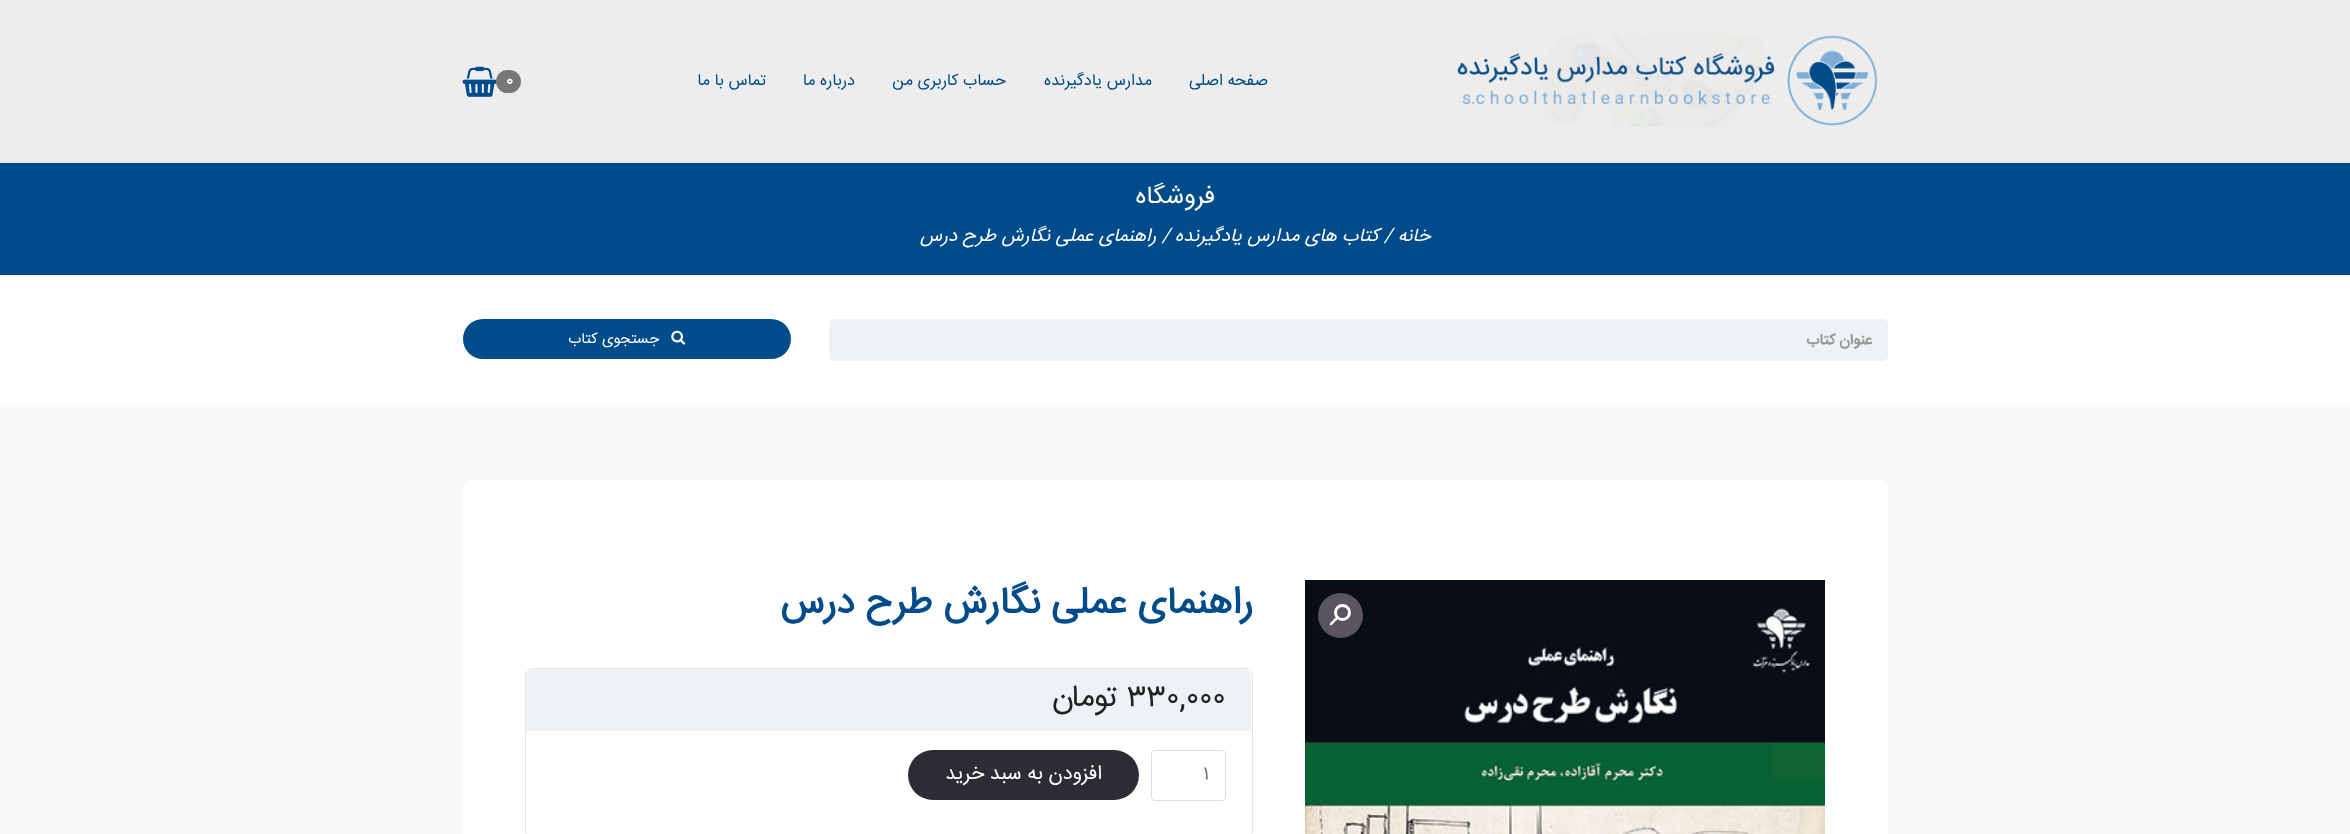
<!DOCTYPE html>
<meta charset="utf-8">
<style>body { margin: 0 } canvas { display: block }</style>
<canvas id="canvas" width="2350" height="834"></canvas>
<img id="img1" src="img_01.png" hidden>
<img id="img2" src="img_02.png" hidden>
<img id="img3" src="img_03.png" hidden>
<img id="img4" src="img_04.png" hidden>
<script>
window.onload = function () {
	const canvas = document.getElementById("canvas");
	const ctx = canvas.getContext("2d");
	ctx.miterLimit = 4;
	ctx.fontKerning = "normal";
	function txt(s, x, y) {
		ctx.fillText(s, x, y);
	}
	function fill(x, y, w, h) {
		ctx.fillRect(x, y, w, h);
	}
	function round(x, y, w, h, r) {
		ctx.beginPath();
		ctx.roundRect(x, y, w, h, r);
		ctx.fill();
	}
	function img(id, x, y, w, h) {
		ctx.drawImage(document.getElementById(id), x, y, w, h);
	}

	ctx.fillStyle = "#F9F9F9";
	fill(0, 0, 2350, 834);
	ctx.fillStyle = "#EDEDED";
	fill(0, 0, 2350, 163);
	img("img1", 1457, 34, 421, 93);
	img("img2", 462, 66, 35, 31);
	ctx.fillStyle = "#777777";
	round(496, 70, 25, 23, 11.5);
	ctx.fillStyle = "#004B89";
	fill(0, 163, 2350, 112);
	ctx.fillStyle = "#FFFFFF";
	fill(0, 275, 2350, 130);
	ctx.fillStyle = "#EDF3F4";
	round(829, 319, 1059, 42, 5);
	ctx.fillStyle = "#004B89";
	round(463, 319, 328, 40, 20);
	img("img3", 671, 330, 15, 15);
	ctx.fillStyle = "#FFFFFF";
	round(463, 480, 1425, 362, 8);
	img("img4", 1305, 580, 520, 254);
	ctx.fillStyle = "#5A5462";
	ctx.beginPath();
	ctx.arc(1340.5, 615.5, 22.5, 0, Math.PI * 2);
	ctx.fill();
	ctx.beginPath();
	ctx.arc(1342.5, 612.5, 7, 0, Math.PI * 2);
	ctx.strokeStyle = "#FFFFFF";
	ctx.lineWidth = 3;
	ctx.stroke();
	ctx.fillStyle = "#FFFFFF";
	ctx.beginPath();
	ctx.moveTo(1337.5, 617.5);
	ctx.bezierCurveTo(1338.5, 619, 1335.5, 621.5, 1334.5, 622);
	ctx.bezierCurveTo(1334, 623, 1331.5, 626, 1330, 625);
	ctx.bezierCurveTo(1329, 623.5, 1332, 621, 1333, 620.5);
	ctx.bezierCurveTo(1333.5, 619.5, 1336, 616.5, 1337.5, 617.5);
	ctx.closePath();
	ctx.fill();
	ctx.beginPath();
	ctx.roundRect(525.5, 668.5, 727, 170, 7.5);
	ctx.strokeStyle = "#E5E5E5";
	ctx.lineWidth = 1;
	ctx.stroke();
	ctx.fillStyle = "#EDF3F4";
	ctx.beginPath();
	ctx.roundRect(526, 669, 725, 62, [8, 8, 0, 0]);
	ctx.fill();
	ctx.beginPath();
	ctx.roundRect(1151.5, 750.5, 74, 50, 3.5);
	ctx.strokeStyle = "#DDDDDD";
	ctx.stroke();
	ctx.fillStyle = "#2F2B35";
	round(908, 750, 231, 50, 25);
	ctx.direction = "rtl";
	ctx.font = "16.25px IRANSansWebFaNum";
	ctx.fillStyle = "#004B89";
	txt("صفحه اصلی", 1268, 85);
	txt("مدارس یادگیرنده", 1152, 85);
	txt("حساب کاربری من", 1006, 85);
	txt("درباره ما", 855, 85);
	txt("تماس با ما", 766, 85);
	ctx.direction = "ltr";
	ctx.font = "bold 15px IRANSansWebFaNum";
	ctx.fillStyle = "#FFFFFF";
	txt("0", 506, 85);
	ctx.direction = "rtl";
	ctx.font = "25px IRANSansWebFaNum";
	txt("فروشگاه", 1215, 203);
	ctx.font = "italic 18.75px IRANSansWebFaNum";
	txt("خانه", 1430, 241);
	ctx.direction = "ltr";
	txt("/", 1384, 241);
	ctx.direction = "rtl";
	txt("کتاب های مدارس یادگیرنده", 1379, 241);
	txt("/ راهنمای عملی نگارش طرح درس", 1170, 241);
	ctx.font = "bold 15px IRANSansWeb";
	ctx.fillStyle = "#999999";
	txt("عنوان کتاب", 1872, 344);
	ctx.font = "15px IRANSansWebFaNum";
	ctx.fillStyle = "#FFFFFF";
	txt("جستجوی کتاب", 659, 343);
	ctx.font = "bold 37.5px IRANSansWebFaNum";
	ctx.fillStyle = "#004B89";
	txt("راهنمای عملی نگارش طرح درس", 1253, 613);
	ctx.direction = "ltr";
	ctx.font = "31px IRANSansWebFaNum";
	ctx.fillStyle = "#222222";
	txt("۳۳۰,۰۰۰", 1127, 706);
	ctx.direction = "rtl";
	txt("تومان", 1119, 706);
	ctx.direction = "ltr";
	ctx.font = "18px IRANSansWebFaNum";
	ctx.fillStyle = "#757575";
	txt("1", 1203, 779);
	ctx.direction = "rtl";
	ctx.font = "20px IRANSansWebFaNum";
	ctx.fillStyle = "#FFFFFF";
	txt("افزودن به سبد خرید", 1102, 779);
};
</script>
